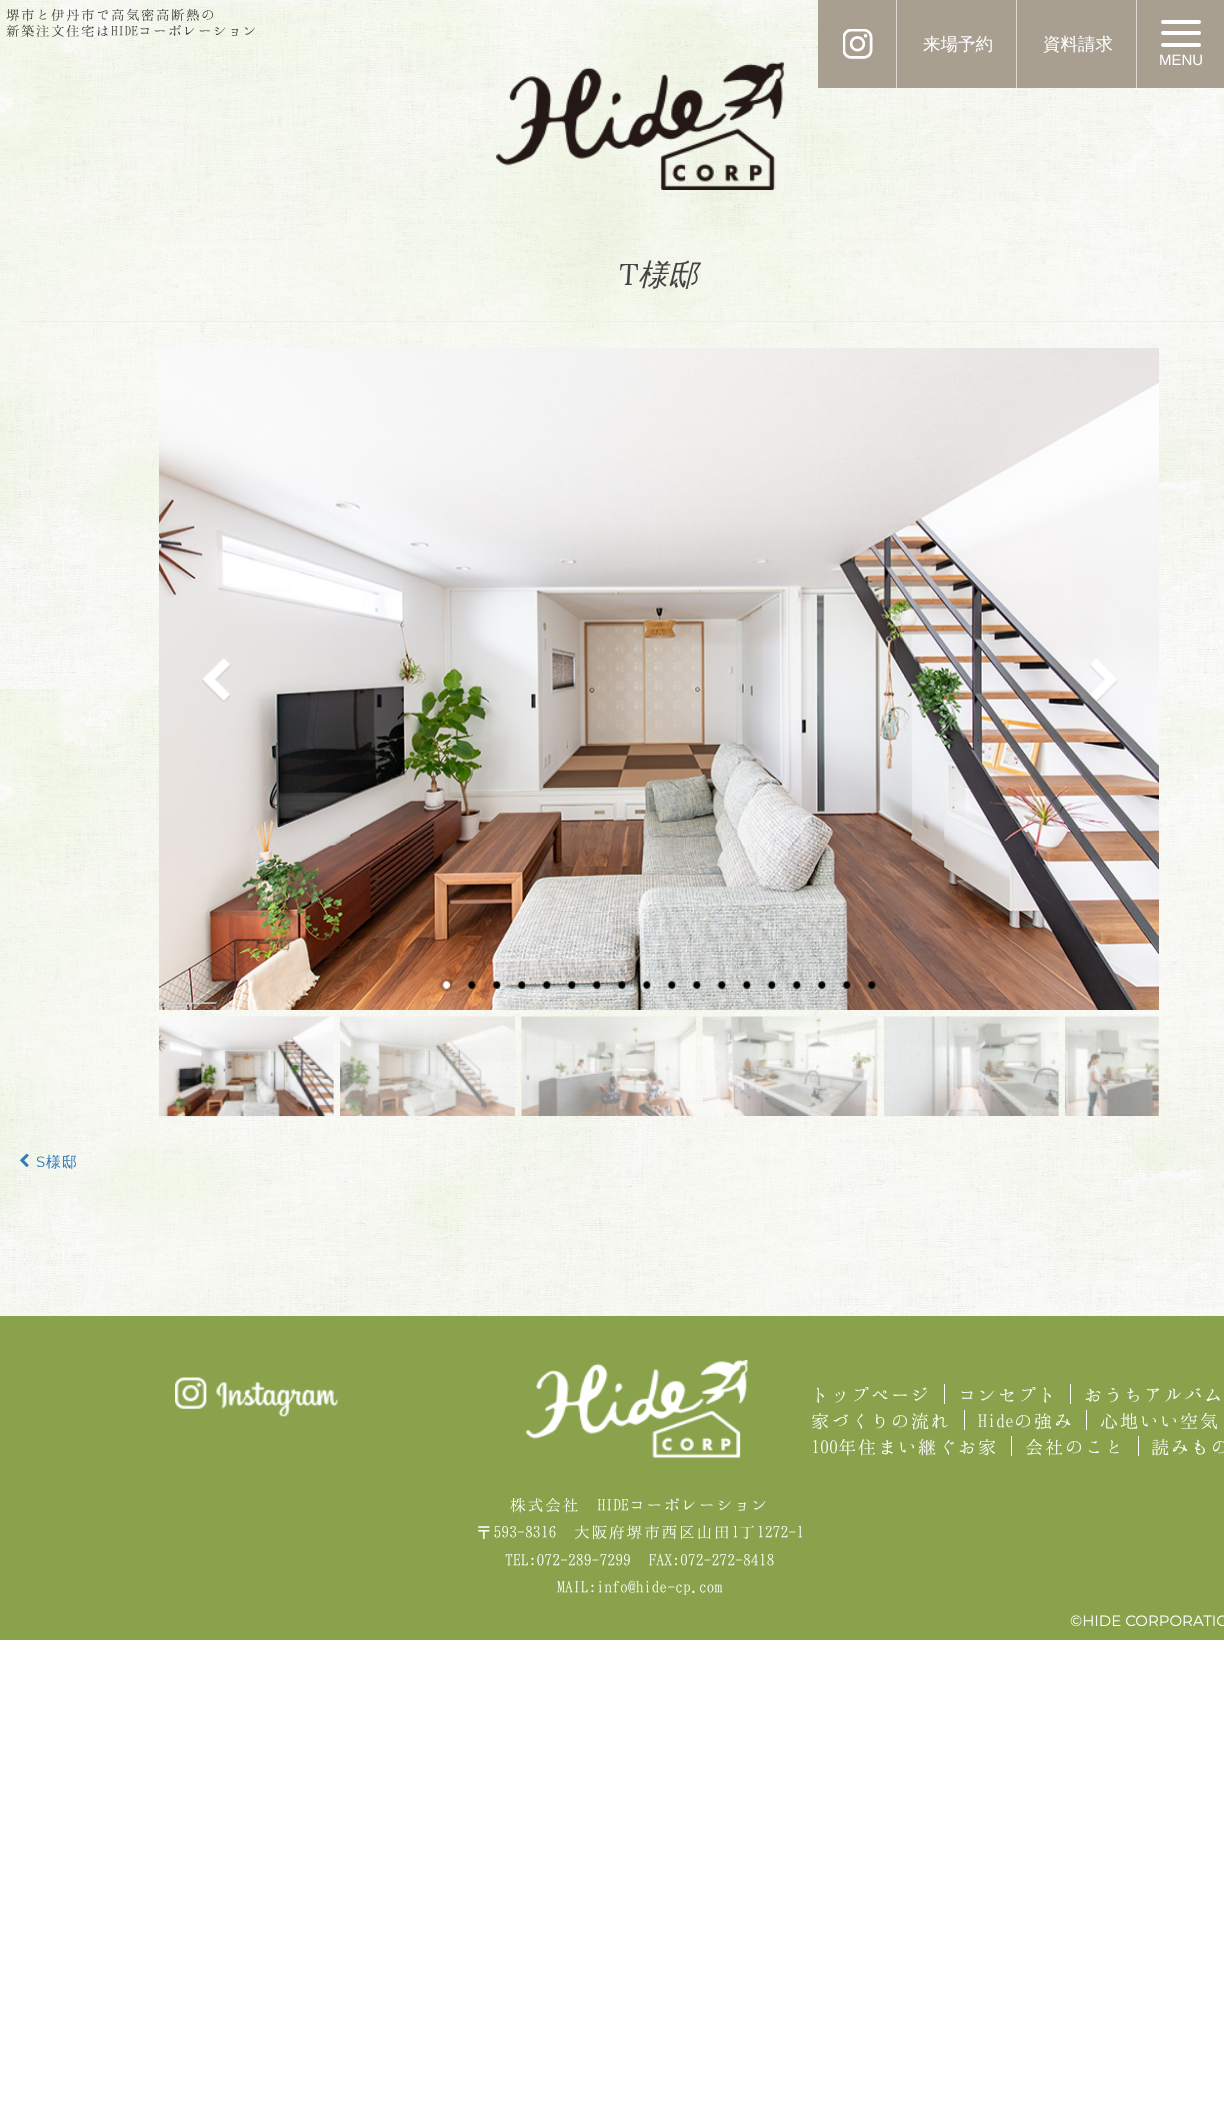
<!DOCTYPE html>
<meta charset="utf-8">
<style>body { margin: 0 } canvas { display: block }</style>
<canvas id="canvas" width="1224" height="2107"></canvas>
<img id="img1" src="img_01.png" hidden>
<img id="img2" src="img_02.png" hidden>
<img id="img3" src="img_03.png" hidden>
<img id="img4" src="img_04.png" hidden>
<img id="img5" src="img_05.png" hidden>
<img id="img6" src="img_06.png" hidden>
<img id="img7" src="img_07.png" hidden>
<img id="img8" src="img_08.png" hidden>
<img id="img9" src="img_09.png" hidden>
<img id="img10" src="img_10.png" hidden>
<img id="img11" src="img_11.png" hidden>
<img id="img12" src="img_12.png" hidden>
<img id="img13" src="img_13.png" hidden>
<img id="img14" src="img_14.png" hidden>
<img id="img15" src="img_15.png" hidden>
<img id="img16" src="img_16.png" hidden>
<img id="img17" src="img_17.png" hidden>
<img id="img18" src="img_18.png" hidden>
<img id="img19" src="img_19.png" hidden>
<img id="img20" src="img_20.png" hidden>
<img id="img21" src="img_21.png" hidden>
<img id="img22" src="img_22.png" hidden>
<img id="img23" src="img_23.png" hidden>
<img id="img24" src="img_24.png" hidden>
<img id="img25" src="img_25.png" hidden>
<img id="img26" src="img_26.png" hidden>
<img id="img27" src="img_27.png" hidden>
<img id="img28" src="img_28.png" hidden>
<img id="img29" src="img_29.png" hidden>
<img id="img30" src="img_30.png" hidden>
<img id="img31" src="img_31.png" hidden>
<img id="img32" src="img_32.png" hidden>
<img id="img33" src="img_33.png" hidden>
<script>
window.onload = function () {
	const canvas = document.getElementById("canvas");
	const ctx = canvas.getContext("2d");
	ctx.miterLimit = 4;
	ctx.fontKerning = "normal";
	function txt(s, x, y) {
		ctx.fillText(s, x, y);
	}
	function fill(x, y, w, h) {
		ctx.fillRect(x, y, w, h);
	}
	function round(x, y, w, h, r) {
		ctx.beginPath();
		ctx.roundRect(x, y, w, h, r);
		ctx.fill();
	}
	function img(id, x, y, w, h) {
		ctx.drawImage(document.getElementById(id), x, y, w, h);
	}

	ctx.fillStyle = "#FFFFFF";
	fill(0, 0, 1224, 2107);
	img("img1", 0, 0, 1224, 1316);
	img("img2", 496, 62, 288, 128);
	ctx.fillStyle = "#EEEEEE";
	fill(19, 321, 1205, 1);
	img("img3", 159, 348, 1000, 662);
	img("img4", 202, 658, 29, 44);
	img("img5", 1089, 659, 29, 43);
	img("img6", 440, 978, 13, 14);
	img("img7", 467, 981, 10, 8);
	img("img8", 492, 981, 10, 8);
	img("img9", 517, 981, 10, 8);
	img("img10", 542, 981, 10, 8);
	img("img11", 567, 981, 10, 8);
	img("img12", 592, 981, 10, 8);
	img("img13", 617, 981, 10, 8);
	img("img14", 642, 981, 10, 8);
	img("img15", 667, 981, 10, 8);
	img("img16", 692, 981, 10, 8);
	img("img17", 717, 981, 10, 8);
	img("img18", 742, 981, 10, 8);
	img("img19", 767, 981, 10, 8);
	img("img20", 792, 981, 10, 8);
	img("img21", 817, 981, 10, 8);
	img("img22", 842, 981, 10, 8);
	img("img23", 867, 981, 10, 8);
	img("img24", 158, 1016, 176, 101);
	img("img25", 340, 1016, 175, 100);
	img("img26", 521, 1016, 175, 100);
	img("img27", 702, 1016, 176, 100);
	img("img28", 884, 1016, 175, 100);
	img("img29", 1065, 1016, 94, 100);
	img("img30", 20, 1153, 9, 15);
	ctx.fillStyle = "#89A24B";
	fill(0, 1316, 1224, 324);
	img("img31", 175, 1377, 163, 40);
	img("img32", 526, 1360, 222, 98);
	ctx.fillStyle = "#FFFFFF";
	fill(944, 1384, 1, 20);
	fill(1070, 1384, 1, 20);
	fill(964, 1410, 1, 20);
	fill(1086, 1410, 1, 20);
	fill(1011, 1436, 1, 20);
	fill(1138, 1436, 1, 20);
	ctx.fillStyle = "#A89F91";
	fill(818, 0, 406, 88);
	img("img33", 843, 29, 30, 30);
	ctx.fillStyle = "#DCD9D3";
	fill(896, 0, 1, 88);
	fill(1016, 0, 1, 88);
	fill(1136, 0, 1, 88);
	ctx.fillStyle = "#FFFFFF";
	round(1161, 20, 40, 4, 2);
	round(1161, 31, 40, 4, 2);
	round(1161, 43, 40, 4, 2);
	ctx.font = "15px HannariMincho";
	ctx.fillStyle = "#333333";
	txt("堺市と伊丹市で高気密高断熱の", 6, 20);
	txt("新築注文住宅はHIDEコーポレーション", 6, 36);
	ctx.font = "italic 30px Lora";
	ctx.fillStyle = "#444444";
	txt("T", 619, 285);
	ctx.font = "italic 500 30px WenQuanYi Zen Hei";
	txt("様邸", 638, 285);
	ctx.letterSpacing = "1px";
	ctx.font = "15px Montserrat";
	ctx.fillStyle = "#337AB7";
	txt("S", 36, 1167);
	ctx.font = "500 15px WenQuanYi Zen Hei";
	txt("様邸", 46, 1167);
	ctx.letterSpacing = "0px";
	ctx.font = "20px HannariMincho";
	ctx.fillStyle = "#FFFFFF";
	txt("トップページ", 811, 1402);
	txt("コンセプト", 958, 1402);
	txt("おうちアルバム", 1084, 1402);
	txt("家づくりの流れ", 811, 1428);
	txt("Hideの強み", 978, 1428);
	txt("心地いい空気", 1100, 1428);
	txt("100年住まい継ぐお家", 811, 1454);
	txt("会社のこと", 1025, 1454);
	txt("読みもの", 1151, 1454);
	ctx.font = "17.5px HannariMincho";
	txt("株式会社 HIDEコーポレーション", 510, 1511);
	txt("〒593-8316 大阪府堺市西区山田1丁1272-1", 476, 1538);
	txt("TEL:072-289-7299 FAX:072-272-8418", 505, 1566);
	txt("MAIL:info@hide-cp.com", 557, 1593);
	ctx.font = "15px Montserrat";
	txt("©HIDE CORPORATIO", 1070, 1626);
	ctx.font = "500 17.5px WenQuanYi Zen Hei";
	txt("来場予約", 923, 50);
	txt("資料請求", 1043, 50);
	ctx.font = "15px Liberation Sans";
	txt("MENU", 1159, 65);
};
</script>
